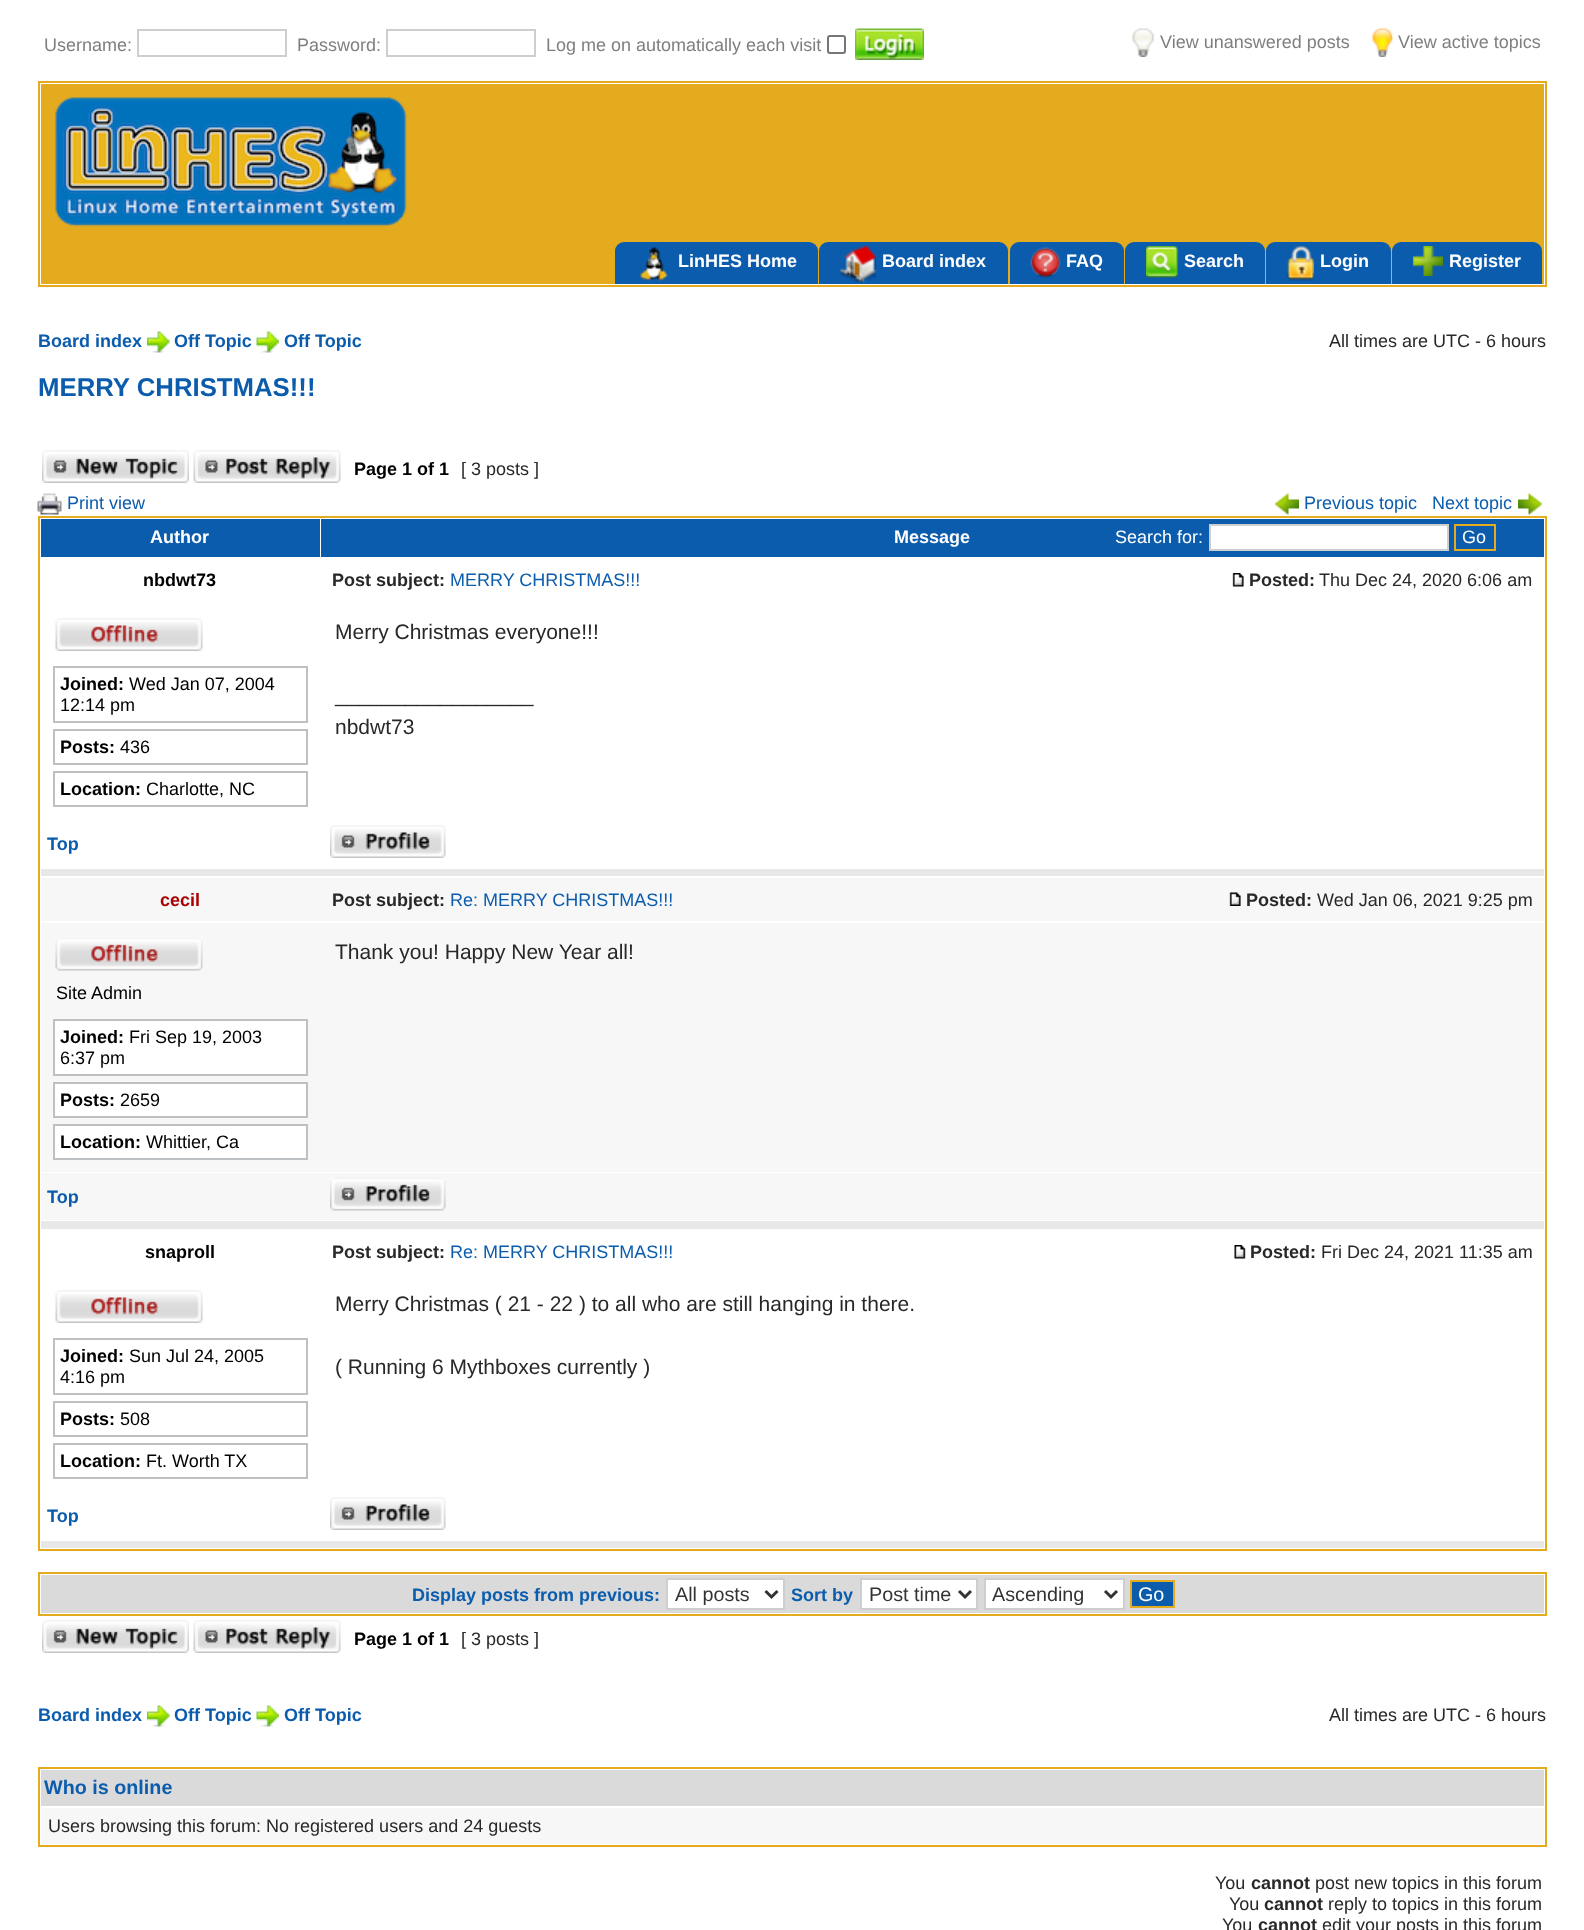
<!DOCTYPE html>
<meta charset="utf-8">
<style>body { margin: 0 } canvas { display: block }</style>
<canvas id="canvas" width="1584" height="1930"></canvas>
<img id="img1" src="img_01.png" hidden>
<img id="img2" src="img_02.png" hidden>
<img id="img3" src="img_03.png" hidden>
<img id="img4" src="img_04.png" hidden>
<img id="img5" src="img_05.png" hidden>
<img id="img6" src="img_06.png" hidden>
<img id="img7" src="img_07.png" hidden>
<img id="img8" src="img_08.png" hidden>
<img id="img9" src="img_09.png" hidden>
<img id="img10" src="img_10.png" hidden>
<img id="img11" src="img_11.png" hidden>
<img id="img12" src="img_12.png" hidden>
<img id="img13" src="img_13.png" hidden>
<img id="img14" src="img_14.png" hidden>
<img id="img15" src="img_15.png" hidden>
<img id="img16" src="img_16.png" hidden>
<img id="img17" src="img_17.png" hidden>
<img id="img18" src="img_18.png" hidden>
<img id="img19" src="img_19.png" hidden>
<img id="img20" src="img_20.png" hidden>
<img id="img21" src="img_21.png" hidden>
<img id="img22" src="img_22.png" hidden>
<img id="img23" src="img_23.png" hidden>
<img id="img24" src="img_24.png" hidden>
<script>
window.onload = function () {
	const canvas = document.getElementById("canvas");
	const ctx = canvas.getContext("2d");
	ctx.miterLimit = 4;
	ctx.fontKerning = "normal";
	function txt(s, x, y) {
		ctx.fillText(s, x, y);
	}
	function fill(x, y, w, h) {
		ctx.fillRect(x, y, w, h);
	}
	function img(id, x, y, w, h) {
		ctx.drawImage(document.getElementById(id), x, y, w, h);
	}

	ctx.fillStyle = "#FFFFFF";
	fill(0, 0, 1584, 1930);
	ctx.strokeStyle = "#CDCECF";
	ctx.lineWidth = 2;
	ctx.strokeRect(138, 30, 148, 26);
	ctx.strokeRect(387, 30, 148, 26);
	ctx.beginPath();
	ctx.roundRect(828, 36, 17, 17, 2);
	ctx.strokeStyle = "#767676";
	ctx.stroke();
	img("img1", 855, 28, 69, 32);
	img("img2", 1132, 28, 23, 29);
	img("img3", 1372, 28, 22, 29);
	ctx.strokeStyle = "#E4AB1E";
	ctx.strokeRect(39, 82, 1507, 204);
	ctx.fillStyle = "#E4AB1E";
	fill(41, 84, 1503, 200);
	img("img4", 54, 97, 353, 130);
	ctx.fillStyle = "#0B5CAD";
	ctx.beginPath();
	ctx.roundRect(615, 242, 203, 42, [9, 9, 0, 0]);
	ctx.fill();
	img("img5", 640, 247, 28, 34);
	ctx.beginPath();
	ctx.roundRect(819, 242, 189, 42, [9, 9, 0, 0]);
	ctx.fill();
	img("img6", 840, 246, 36, 36);
	ctx.beginPath();
	ctx.roundRect(1010, 242, 114, 42, [9, 9, 0, 0]);
	ctx.fill();
	img("img7", 1030, 247, 31, 31);
	ctx.beginPath();
	ctx.roundRect(1125, 242, 140, 42, [9, 9, 0, 0]);
	ctx.fill();
	img("img8", 1146, 246, 32, 32);
	ctx.beginPath();
	ctx.roundRect(1266, 242, 125, 42, [9, 9, 0, 0]);
	ctx.fill();
	img("img9", 1287, 246, 27, 35);
	ctx.beginPath();
	ctx.roundRect(1392, 242, 150, 42, [9, 9, 0, 0]);
	ctx.fill();
	img("img10", 1413, 246, 30, 30);
	img("img11", 147, 331, 23, 22);
	img("img12", 256, 331, 23, 22);
	img("img13", 42, 450, 147, 33);
	img("img14", 193, 450, 148, 33);
	img("img15", 37, 493, 25, 22);
	img("img16", 1275, 493, 24, 22);
	img("img17", 1518, 493, 24, 22);
	ctx.strokeRect(39, 517, 1507, 1033);
	fill(41, 519, 279, 38);
	fill(321, 519, 1223, 38);
	ctx.fillStyle = "#FFFFFF";
	ctx.beginPath();
	ctx.rect(1210, 525, 238, 25);
	ctx.fill();
	ctx.strokeStyle = "#CDCECF";
	ctx.stroke();
	ctx.strokeStyle = "#E4AB1E";
	ctx.strokeRect(1455, 525, 40, 25);
	img("img18", 1232, 573, 12, 14);
	img("img19", 55, 618, 148, 33);
	ctx.strokeStyle = "#BDC1C4";
	ctx.strokeRect(54, 667, 253, 55);
	ctx.strokeRect(54, 730, 253, 34);
	ctx.strokeRect(54, 772, 253, 34);
	img("img20", 330, 825, 116, 33);
	ctx.fillStyle = "#E8E8E8";
	fill(41, 869, 1503, 7);
	ctx.fillStyle = "#F7F7F7";
	fill(41, 878, 1503, 43);
	img("img21", 1229, 892, 12, 14);
	fill(41, 923, 1503, 249);
	img("img22", 55, 938, 148, 33);
	ctx.fillStyle = "#FFFFFF";
	ctx.beginPath();
	ctx.rect(54, 1020, 253, 55);
	ctx.fill();
	ctx.stroke();
	ctx.beginPath();
	ctx.rect(54, 1083, 253, 34);
	ctx.fill();
	ctx.stroke();
	ctx.beginPath();
	ctx.rect(54, 1125, 253, 34);
	ctx.fill();
	ctx.stroke();
	ctx.fillStyle = "#F7F7F7";
	fill(41, 1173, 1503, 47);
	img("img23", 330, 1177, 116, 34);
	ctx.fillStyle = "#E8E8E8";
	fill(41, 1221, 1503, 8);
	img("img24", 1234, 1245, 12, 14);
	img("img19", 55, 1290, 148, 33);
	ctx.strokeRect(54, 1339, 253, 55);
	ctx.strokeRect(54, 1402, 253, 34);
	ctx.strokeRect(54, 1444, 253, 34);
	img("img20", 330, 1497, 116, 33);
	fill(41, 1541, 1503, 7);
	ctx.strokeStyle = "#E4AB1E";
	ctx.strokeRect(39, 1573, 1507, 42);
	ctx.fillStyle = "#DADADA";
	fill(41, 1575, 1503, 38);
	ctx.fillStyle = "#FFFFFF";
	ctx.beginPath();
	ctx.rect(667, 1579, 117, 30);
	ctx.fill();
	ctx.strokeStyle = "#CDCECF";
	ctx.stroke();
	ctx.beginPath();
	ctx.moveTo(765.5, 1591);
	ctx.lineTo(771.5, 1597);
	ctx.lineTo(777.5, 1591);
	ctx.strokeStyle = "#333333";
	ctx.lineWidth = 3;
	ctx.stroke();
	ctx.beginPath();
	ctx.rect(861, 1579, 116, 30);
	ctx.fill();
	ctx.strokeStyle = "#CDCECF";
	ctx.lineWidth = 2;
	ctx.stroke();
	ctx.beginPath();
	ctx.moveTo(959, 1591);
	ctx.lineTo(965, 1597);
	ctx.lineTo(971, 1591);
	ctx.strokeStyle = "#333333";
	ctx.lineWidth = 3;
	ctx.stroke();
	ctx.beginPath();
	ctx.rect(985, 1579, 139, 30);
	ctx.fill();
	ctx.strokeStyle = "#CDCECF";
	ctx.lineWidth = 2;
	ctx.stroke();
	ctx.beginPath();
	ctx.moveTo(1105, 1591);
	ctx.lineTo(1111, 1597);
	ctx.lineTo(1117, 1591);
	ctx.strokeStyle = "#333333";
	ctx.lineWidth = 3;
	ctx.stroke();
	ctx.fillStyle = "#0B5CAD";
	ctx.beginPath();
	ctx.rect(1131, 1581, 43, 26);
	ctx.fill();
	ctx.strokeStyle = "#E4AB1E";
	ctx.lineWidth = 2;
	ctx.stroke();
	img("img13", 42, 1620, 147, 33);
	img("img14", 193, 1620, 148, 33);
	img("img11", 147, 1705, 23, 22);
	img("img12", 256, 1705, 23, 22);
	ctx.strokeRect(39, 1768, 1507, 78);
	ctx.fillStyle = "#DADADA";
	fill(41, 1770, 1503, 36);
	ctx.fillStyle = "#F7F7F7";
	fill(41, 1808, 1503, 36);
	ctx.font = "18px Liberation Sans";
	ctx.fillStyle = "#7F7F7F";
	txt("Username:", 44, 51);
	txt("Password:", 297, 51);
	txt("Log me on automatically each visit", 546, 51);
	txt("View unanswered posts", 1160, 48);
	txt("View active topics", 1398, 48);
	ctx.font = "bold 18px Liberation Sans";
	ctx.fillStyle = "#FFFFFF";
	txt("LinHES Home", 678, 267);
	txt("Board index", 882, 267);
	txt("FAQ", 1066, 267);
	txt("Search", 1184, 267);
	txt("Login", 1320, 267);
	txt("Register", 1449, 267);
	ctx.fillStyle = "#0B5CAD";
	txt("Board index", 38, 347);
	txt("Off Topic", 174, 347);
	txt("Off Topic", 284, 347);
	ctx.font = "18px Liberation Sans";
	ctx.fillStyle = "#282828";
	txt("All times are UTC - 6 hours", 1329, 347);
	ctx.font = "bold 25.75px Liberation Sans";
	ctx.fillStyle = "#0B5CAD";
	txt("MERRY CHRISTMAS!!!", 38, 396);
	ctx.font = "bold 18px Liberation Sans";
	ctx.fillStyle = "#000000";
	txt("Page 1 of 1", 354, 475);
	ctx.font = "18px Liberation Sans";
	ctx.fillStyle = "#282828";
	txt("[ 3 posts ]", 461, 475);
	ctx.fillStyle = "#0B5CAD";
	txt("Print view", 67, 509);
	txt("Previous topic", 1304, 509);
	txt("Next topic", 1432, 509);
	ctx.font = "bold 18px Liberation Sans";
	ctx.fillStyle = "#FFFFFF";
	txt("Author", 150, 543);
	txt("Message", 894, 543);
	ctx.font = "18px Liberation Sans";
	txt("Search for:", 1115, 543);
	txt("Go", 1462, 543);
	ctx.font = "bold 18px Liberation Sans";
	ctx.fillStyle = "#000000";
	txt("nbdwt73", 143, 586);
	ctx.fillStyle = "#282828";
	txt("Post subject:", 332, 586);
	ctx.font = "18px Liberation Sans";
	ctx.fillStyle = "#0B5CAD";
	txt("MERRY CHRISTMAS!!!", 450, 586);
	ctx.font = "bold 18px Liberation Sans";
	ctx.fillStyle = "#282828";
	txt("Posted:", 1249, 586);
	ctx.font = "18px Liberation Sans";
	txt("Thu Dec 24, 2020 6:06 am", 1319, 586);
	ctx.font = "bold 18px Liberation Sans";
	ctx.fillStyle = "#000000";
	txt("Joined:", 60, 690);
	ctx.font = "18px Liberation Sans";
	txt("Wed Jan 07, 2004", 129, 690);
	txt("12:14 pm", 60, 711);
	ctx.font = "bold 18px Liberation Sans";
	txt("Posts:", 60, 753);
	ctx.font = "18px Liberation Sans";
	txt("436", 120, 753);
	ctx.font = "bold 18px Liberation Sans";
	txt("Location:", 60, 795);
	ctx.font = "18px Liberation Sans";
	txt("Charlotte, NC", 146, 795);
	ctx.font = "21px Liberation Sans";
	ctx.fillStyle = "#282828";
	txt("Merry Christmas everyone!!!", 335, 639);
	txt("_________________", 335, 702);
	txt("nbdwt73", 335, 734);
	ctx.font = "bold 18px Liberation Sans";
	ctx.fillStyle = "#0B5CAD";
	txt("Top", 47, 850);
	ctx.fillStyle = "#AA0000";
	txt("cecil", 160, 906);
	ctx.fillStyle = "#282828";
	txt("Post subject:", 332, 906);
	ctx.font = "18px Liberation Sans";
	ctx.fillStyle = "#0B5CAD";
	txt("Re: MERRY CHRISTMAS!!!", 450, 906);
	ctx.font = "bold 18px Liberation Sans";
	ctx.fillStyle = "#282828";
	txt("Posted:", 1246, 906);
	ctx.font = "18px Liberation Sans";
	txt("Wed Jan 06, 2021 9:25 pm", 1317, 906);
	ctx.font = "21px Liberation Sans";
	txt("Thank you! Happy New Year all!", 335, 959);
	ctx.font = "18px Liberation Sans";
	ctx.fillStyle = "#000000";
	txt("Site Admin", 56, 999);
	ctx.font = "bold 18px Liberation Sans";
	txt("Joined:", 60, 1043);
	ctx.font = "18px Liberation Sans";
	txt("Fri Sep 19, 2003", 129, 1043);
	txt("6:37 pm", 60, 1064);
	ctx.font = "bold 18px Liberation Sans";
	txt("Posts:", 60, 1106);
	ctx.font = "18px Liberation Sans";
	txt("2659", 120, 1106);
	ctx.font = "bold 18px Liberation Sans";
	txt("Location:", 60, 1148);
	ctx.font = "18px Liberation Sans";
	txt("Whittier, Ca", 146, 1148);
	ctx.font = "bold 18px Liberation Sans";
	ctx.fillStyle = "#0B5CAD";
	txt("Top", 47, 1203);
	ctx.fillStyle = "#000000";
	txt("snaproll", 145, 1258);
	ctx.fillStyle = "#282828";
	txt("Post subject:", 332, 1258);
	ctx.font = "18px Liberation Sans";
	ctx.fillStyle = "#0B5CAD";
	txt("Re: MERRY CHRISTMAS!!!", 450, 1258);
	ctx.font = "bold 18px Liberation Sans";
	ctx.fillStyle = "#282828";
	txt("Posted:", 1250, 1258);
	ctx.font = "18px Liberation Sans";
	txt("Fri Dec 24, 2021 11:35 am", 1321, 1258);
	ctx.font = "21px Liberation Sans";
	txt("Merry Christmas ( 21 - 22 ) to all who are still hanging in there.", 335, 1311);
	txt("( Running 6 Mythboxes currently )", 335, 1374);
	ctx.font = "bold 18px Liberation Sans";
	ctx.fillStyle = "#000000";
	txt("Joined:", 60, 1362);
	ctx.font = "18px Liberation Sans";
	txt("Sun Jul 24, 2005", 129, 1362);
	txt("4:16 pm", 60, 1383);
	ctx.font = "bold 18px Liberation Sans";
	txt("Posts:", 60, 1425);
	ctx.font = "18px Liberation Sans";
	txt("508", 120, 1425);
	ctx.font = "bold 18px Liberation Sans";
	txt("Location:", 60, 1467);
	ctx.font = "18px Liberation Sans";
	txt("Ft. Worth TX", 146, 1467);
	ctx.font = "bold 18px Liberation Sans";
	ctx.fillStyle = "#0B5CAD";
	txt("Top", 47, 1522);
	txt("Display posts from previous:", 412, 1601);
	ctx.font = "19.75px Liberation Sans";
	ctx.fillStyle = "#333333";
	txt("All posts", 675, 1601);
	ctx.font = "bold 18px Liberation Sans";
	ctx.fillStyle = "#0B5CAD";
	txt("Sort by", 791, 1601);
	ctx.font = "19.75px Liberation Sans";
	ctx.fillStyle = "#333333";
	txt("Post time", 869, 1601);
	txt("Ascending", 992, 1601);
	ctx.fillStyle = "#FFFFFF";
	txt("Go", 1138, 1601);
	ctx.font = "bold 18px Liberation Sans";
	ctx.fillStyle = "#000000";
	txt("Page 1 of 1", 354, 1645);
	ctx.font = "18px Liberation Sans";
	ctx.fillStyle = "#282828";
	txt("[ 3 posts ]", 461, 1645);
	ctx.font = "bold 18px Liberation Sans";
	ctx.fillStyle = "#0B5CAD";
	txt("Board index", 38, 1721);
	txt("Off Topic", 174, 1721);
	txt("Off Topic", 284, 1721);
	ctx.font = "18px Liberation Sans";
	ctx.fillStyle = "#282828";
	txt("All times are UTC - 6 hours", 1329, 1721);
	ctx.font = "bold 19.75px Liberation Sans";
	ctx.fillStyle = "#0B5CAD";
	txt("Who is online", 44, 1794);
	ctx.font = "18px Liberation Sans";
	ctx.fillStyle = "#282828";
	txt("Users browsing this forum: No registered users and 24 guests", 48, 1832);
	txt("You", 1215, 1889);
	ctx.font = "bold 18px Liberation Sans";
	txt("cannot", 1251, 1889);
	ctx.font = "18px Liberation Sans";
	txt("post new topics in this forum", 1315, 1889);
	txt("You", 1229, 1910);
	ctx.font = "bold 18px Liberation Sans";
	txt("cannot", 1264, 1910);
	ctx.font = "18px Liberation Sans";
	txt("reply to topics in this forum", 1328, 1910);
	txt("You", 1222, 1931);
	ctx.font = "bold 18px Liberation Sans";
	txt("cannot", 1258, 1931);
	ctx.font = "18px Liberation Sans";
	txt("edit your posts in this forum", 1322, 1931);
};
</script>
